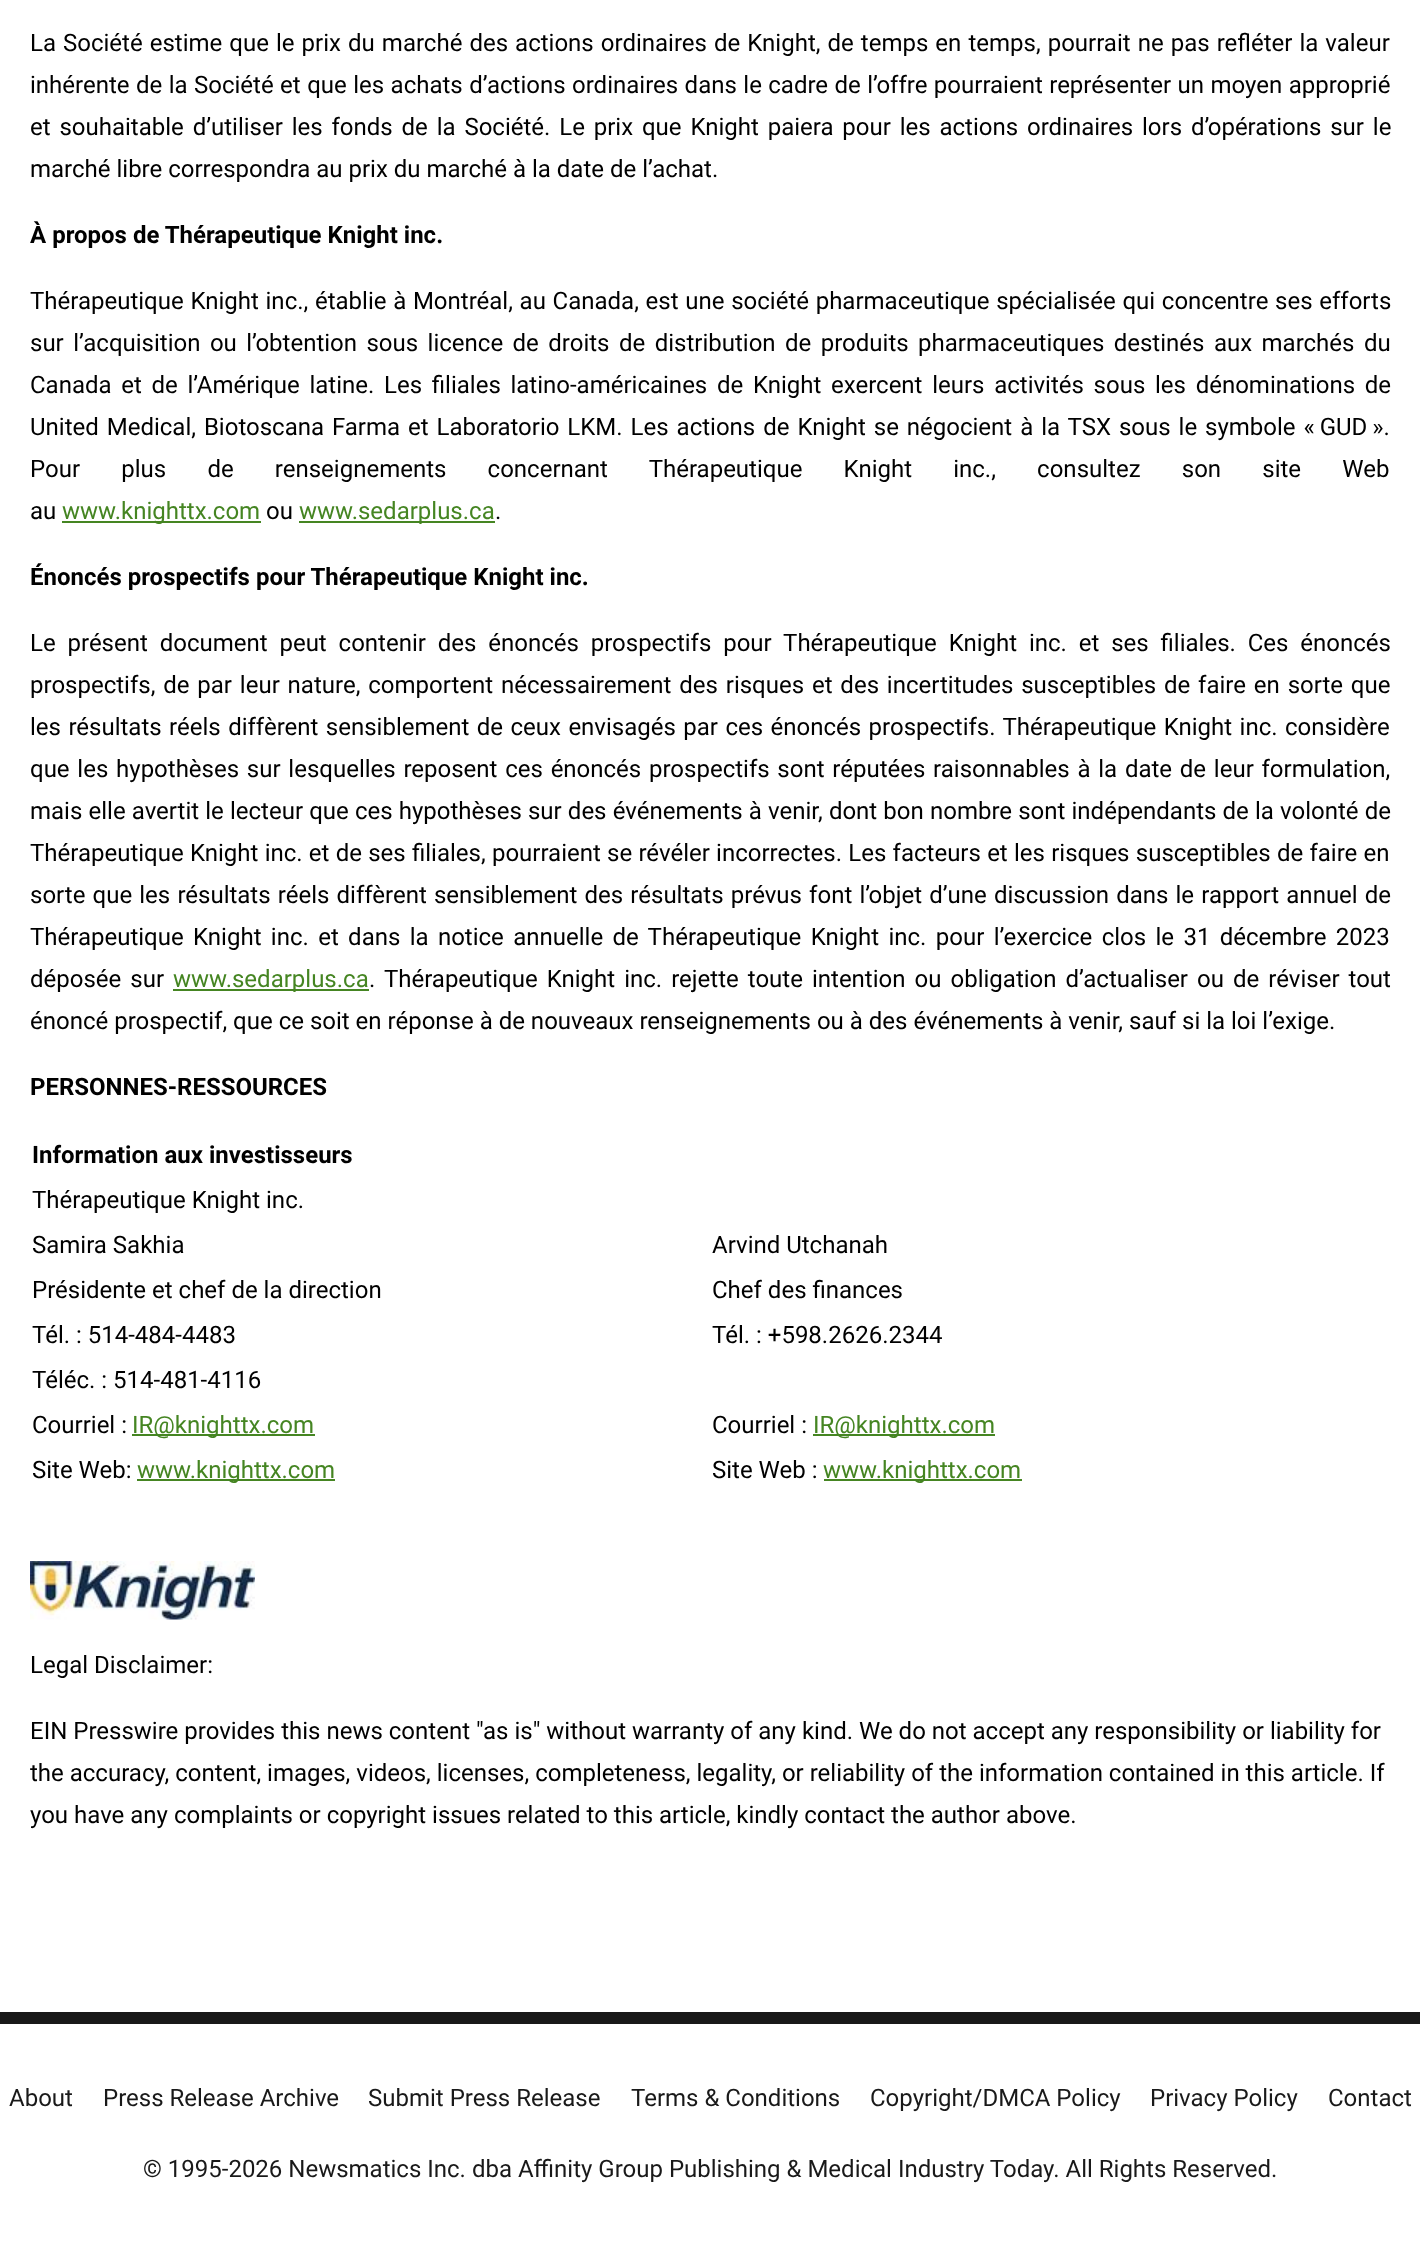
<!DOCTYPE html>
<meta charset="utf-8">
<style>body { margin: 0 } canvas { display: block }</style>
<canvas id="canvas" width="1420" height="2244"></canvas>
<img id="img1" src="img_01.png" hidden>
<script>
window.onload = function () {
	const canvas = document.getElementById("canvas");
	const ctx = canvas.getContext("2d");
	ctx.miterLimit = 4;
	ctx.fontKerning = "normal";
	function txt(s, x, y) {
		ctx.fillText(s, x, y);
	}
	function fill(x, y, w, h) {
		ctx.fillRect(x, y, w, h);
	}
	function img(id, x, y, w, h) {
		ctx.drawImage(document.getElementById(id), x, y, w, h);
	}

	ctx.fillStyle = "#FFFFFF";
	fill(0, 0, 1420, 2244);
	ctx.fillStyle = "#458522";
	fill(62, 521, 199, 2);
	fill(299, 521, 196, 2);
	fill(173, 989, 196, 2);
	fill(132, 1434, 183, 2);
	fill(813, 1434, 182, 2);
	fill(137, 1479, 198, 2);
	fill(824, 1479, 198, 2);
	img("img1", 30, 1561, 225, 59);
	ctx.fillStyle = "#191919";
	fill(0, 2012, 1420, 12);
	ctx.wordSpacing = "1.1px";
	ctx.font = "24px Roboto";
	ctx.fillStyle = "#000000";
	txt("La Société estime que le prix du marché des actions ordinaires de Knight, de temps en temps, pourrait ne pas refléter la valeur", 30, 51);
	ctx.wordSpacing = "0.5px";
	txt("inhérente de la Société et que les achats d’actions ordinaires dans le cadre de l’offre pourraient représenter un moyen approprié", 30, 93);
	ctx.wordSpacing = "2.9px";
	txt("et souhaitable d’utiliser les fonds de la Société. Le prix que Knight paiera pour les actions ordinaires lors d’opérations sur le", 30, 135);
	ctx.wordSpacing = "0px";
	txt("marché libre correspondra au prix du marché à la date de l’achat.", 30, 177);
	ctx.font = "bold 24px Roboto";
	txt("À propos de Thérapeutique Knight inc.", 30, 243);
	ctx.wordSpacing = "0.75px";
	ctx.font = "24px Roboto";
	txt("Thérapeutique Knight inc., établie à Montréal, au Canada, est une société pharmaceutique spécialisée qui concentre ses efforts", 30, 309);
	ctx.wordSpacing = "3.5px";
	txt("sur l’acquisition ou l’obtention sous licence de droits de distribution de produits pharmaceutiques destinés aux marchés du", 30, 351);
	ctx.wordSpacing = "3.75px";
	txt("Canada et de l’Amérique latine. Les filiales latino-américaines de Knight exercent leurs activités sous les dénominations de", 30, 393);
	ctx.wordSpacing = "2px";
	txt("United Medical, Biotoscana Farma et Laboratorio LKM. Les actions de Knight se négocient à la TSX sous le symbole « GUD ».", 30, 435);
	ctx.wordSpacing = "35.25px";
	txt("Pour plus de renseignements concernant Thérapeutique Knight inc., consultez son site Web", 30, 477);
	ctx.wordSpacing = "0px";
	txt("au", 30, 519);
	ctx.fillStyle = "#458522";
	txt("www.knighttx.com", 62, 519);
	ctx.fillStyle = "#000000";
	txt("ou", 266, 519);
	ctx.fillStyle = "#458522";
	txt("www.sedarplus.ca", 299, 519);
	ctx.fillStyle = "#000000";
	txt(".", 495, 519);
	ctx.font = "bold 24px Roboto";
	txt("Énoncés prospectifs pour Thérapeutique Knight inc.", 30, 585);
	ctx.wordSpacing = "5.9px";
	ctx.font = "24px Roboto";
	txt("Le présent document peut contenir des énoncés prospectifs pour Thérapeutique Knight inc. et ses filiales. Ces énoncés", 30, 651);
	ctx.wordSpacing = "1.9px";
	txt("prospectifs, de par leur nature, comportent nécessairement des risques et des incertitudes susceptibles de faire en sorte que", 30, 693);
	ctx.wordSpacing = "1.5px";
	txt("les résultats réels diffèrent sensiblement de ceux envisagés par ces énoncés prospectifs. Thérapeutique Knight inc. considère", 30, 735);
	ctx.wordSpacing = "1.8px";
	txt("que les hypothèses sur lesquelles reposent ces énoncés prospectifs sont réputées raisonnables à la date de leur formulation,", 30, 777);
	ctx.wordSpacing = "0.2px";
	txt("mais elle avertit le lecteur que ces hypothèses sur des événements à venir, dont bon nombre sont indépendants de la volonté de", 30, 819);
	ctx.wordSpacing = "0.3px";
	txt("Thérapeutique Knight inc. et de ses filiales, pourraient se révéler incorrectes. Les facteurs et les risques susceptibles de faire en", 30, 861);
	ctx.wordSpacing = "1.2px";
	txt("sorte que les résultats réels diffèrent sensiblement des résultats prévus font l’objet d’une discussion dans le rapport annuel de", 30, 903);
	ctx.wordSpacing = "3.4px";
	txt("Thérapeutique Knight inc. et dans la notice annuelle de Thérapeutique Knight inc. pour l’exercice clos le 31 décembre 2023", 30, 945);
	ctx.wordSpacing = "3.1px";
	txt("déposée sur", 30, 987);
	ctx.wordSpacing = "0px";
	ctx.fillStyle = "#458522";
	txt("www.sedarplus.ca", 173, 987);
	ctx.wordSpacing = "3.1px";
	ctx.fillStyle = "#000000";
	txt(". Thérapeutique Knight inc. rejette toute intention ou obligation d’actualiser ou de réviser tout", 369, 987);
	ctx.wordSpacing = "0px";
	txt("énoncé prospectif, que ce soit en réponse à de nouveaux renseignements ou à des événements à venir, sauf si la loi l’exige.", 30, 1029);
	ctx.font = "bold 24px Roboto";
	txt("PERSONNES-RESSOURCES", 30, 1095);
	txt("Information aux investisseurs", 32, 1163);
	ctx.font = "24px Roboto";
	txt("Thérapeutique Knight inc.", 32, 1208);
	txt("Samira Sakhia", 32, 1253);
	txt("Arvind Utchanah", 712, 1253);
	txt("Présidente et chef de la direction", 32, 1298);
	txt("Chef des finances", 712, 1298);
	txt("Tél. : 514-484-4483", 32, 1343);
	txt("Tél. : +598.2626.2344", 712, 1343);
	txt("Téléc. : 514-481-4116", 32, 1388);
	txt("Courriel :", 32, 1433);
	ctx.fillStyle = "#458522";
	txt("IR@knighttx.com", 132, 1433);
	ctx.fillStyle = "#000000";
	txt("Courriel :", 712, 1433);
	ctx.fillStyle = "#458522";
	txt("IR@knighttx.com", 813, 1433);
	ctx.fillStyle = "#000000";
	txt("Site Web:", 32, 1478);
	ctx.fillStyle = "#458522";
	txt("www.knighttx.com", 137, 1478);
	ctx.fillStyle = "#000000";
	txt("Site Web :", 712, 1478);
	ctx.fillStyle = "#458522";
	txt("www.knighttx.com", 823, 1478);
	ctx.fillStyle = "#000000";
	txt("Legal Disclaimer:", 30, 1673);
	txt("EIN Presswire provides this news content \"as is\" without warranty of any kind. We do not accept any responsibility or liability for", 30, 1739);
	txt("the accuracy, content, images, videos, licenses, completeness, legality, or reliability of the information contained in this article. If", 30, 1781);
	txt("you have any complaints or copyright issues related to this article, kindly contact the author above.", 30, 1823);
	ctx.fillStyle = "#191919";
	txt("About", 9, 2106);
	txt("Press Release Archive", 103, 2106);
	txt("Submit Press Release", 368, 2106);
	txt("Terms & Conditions", 631, 2106);
	txt("Copyright/DMCA Policy", 870, 2106);
	txt("Privacy Policy", 1150, 2106);
	txt("Contact", 1328, 2106);
	txt("© 1995-2026 Newsmatics Inc. dba Affinity Group Publishing & Medical Industry Today. All Rights Reserved.", 143, 2177);
};
</script>
